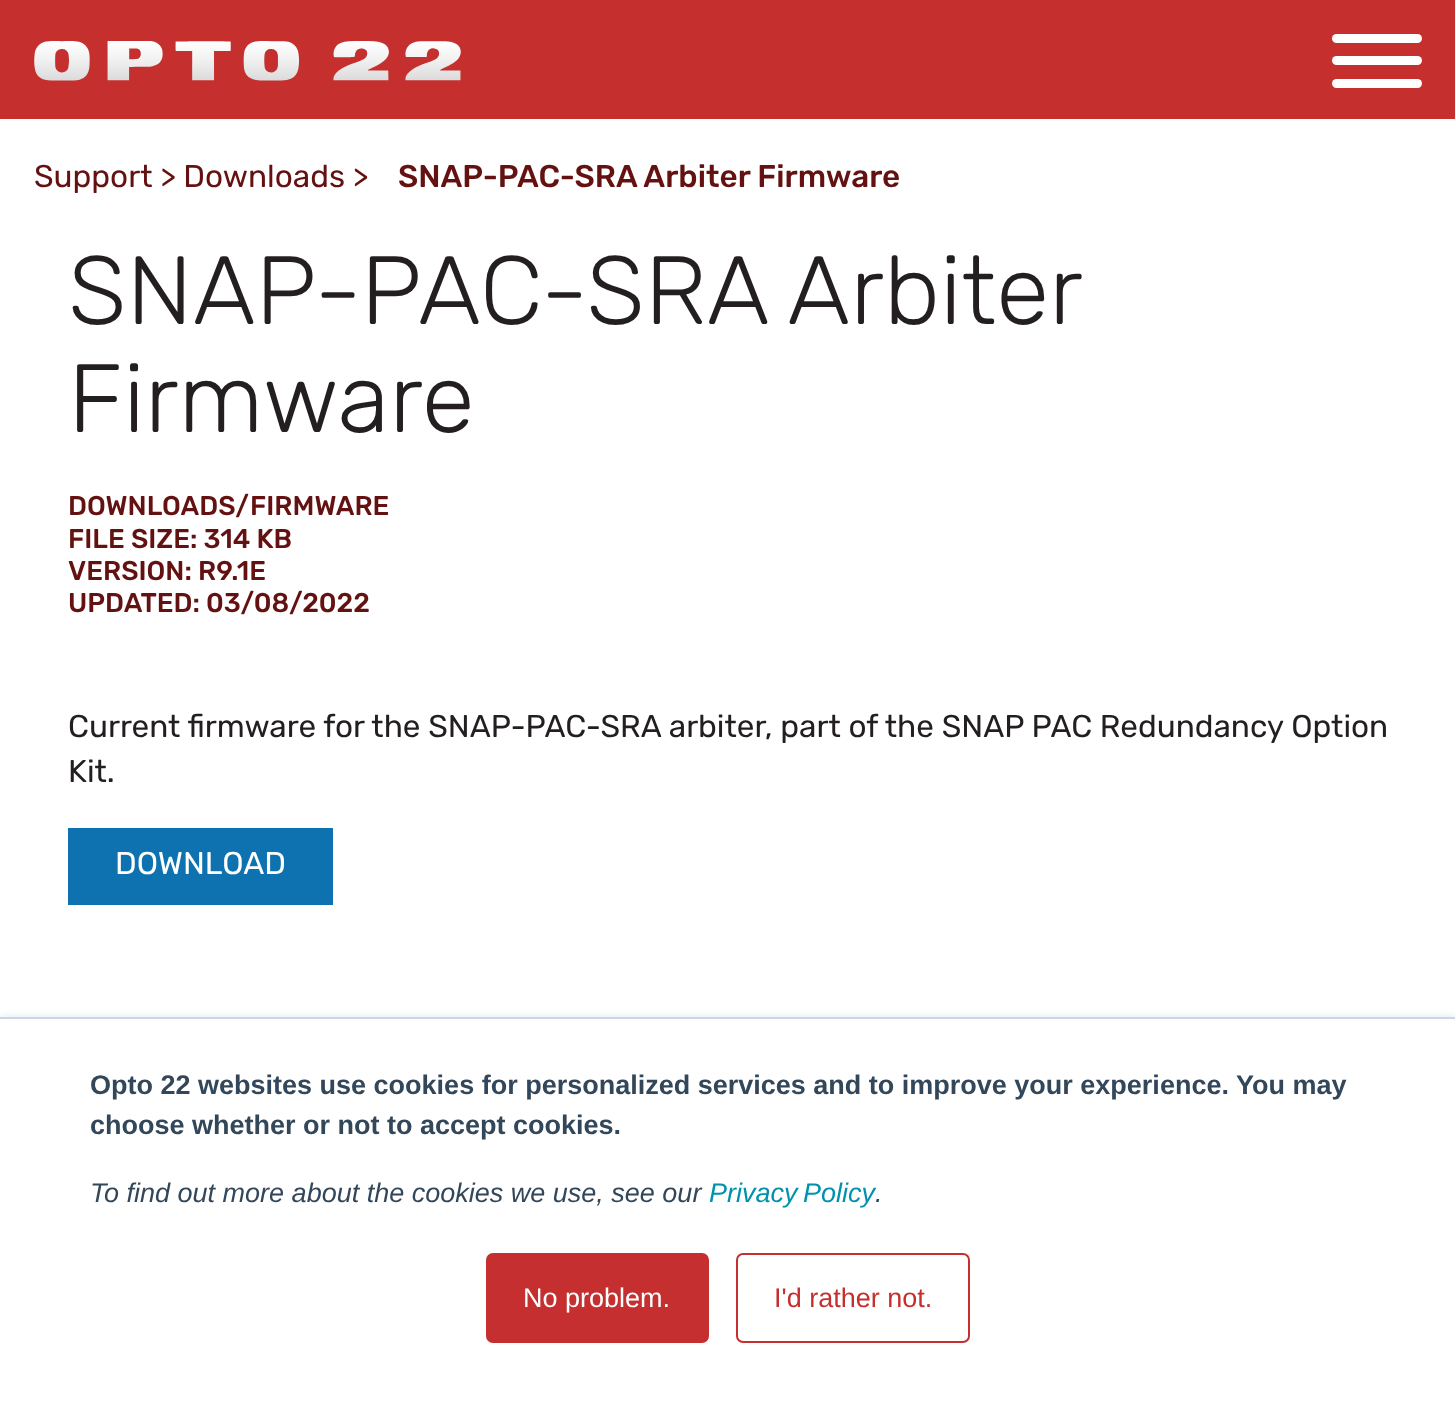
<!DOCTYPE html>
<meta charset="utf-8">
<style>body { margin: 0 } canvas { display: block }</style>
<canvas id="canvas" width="1455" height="1401"></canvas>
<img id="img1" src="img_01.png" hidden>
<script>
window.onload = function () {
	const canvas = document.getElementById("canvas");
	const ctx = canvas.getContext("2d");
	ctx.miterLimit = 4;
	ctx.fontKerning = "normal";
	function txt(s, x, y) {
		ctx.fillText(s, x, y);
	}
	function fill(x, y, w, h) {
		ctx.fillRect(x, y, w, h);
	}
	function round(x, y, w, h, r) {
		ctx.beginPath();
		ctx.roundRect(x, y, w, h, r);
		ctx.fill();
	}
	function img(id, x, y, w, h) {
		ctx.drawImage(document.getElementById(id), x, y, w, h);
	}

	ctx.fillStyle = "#FFFFFF";
	fill(0, 0, 1455, 1401);
	ctx.fillStyle = "#C52F2E";
	fill(0, 0, 1455, 119);
	img("img1", 34, 41, 427, 40);
	ctx.fillStyle = "#FFFFFF";
	round(1332, 56, 90, 9, 4.5);
	round(1332, 34, 90, 9, 4.5);
	round(1332, 79, 90, 9, 4.5);
	ctx.fillStyle = "#0E72B0";
	fill(68, 828, 265, 77);
	ctx.fillStyle = "#EAF0F6";
	ctx.filter = "blur(3.5px)";
	ctx.beginPath();
	ctx.rect(0, 1015, 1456, 385);
	ctx.fill();
	ctx.filter = "none";
	ctx.fillStyle = "#FFFFFF";
	fill(0, 1019, 1455, 382);
	ctx.fillStyle = "#CBD6E2";
	fill(0, 1017, 1455, 2);
	ctx.fillStyle = "#C52F2F";
	ctx.beginPath();
	ctx.roundRect(487, 1254, 221, 88, 6);
	ctx.fill();
	ctx.strokeStyle = "#C52F2F";
	ctx.lineWidth = 2;
	ctx.stroke();
	ctx.beginPath();
	ctx.roundRect(737, 1254, 232, 88, 6);
	ctx.stroke();
	ctx.font = "31.5px Rubik";
	ctx.fillStyle = "#631111";
	txt("Support > Downloads >", 34, 187);
	ctx.font = "500 31.5px Rubik";
	txt("SNAP-PAC-SRA Arbiter Firmware", 398, 187);
	ctx.wordSpacing = "-2px";
	ctx.font = "300 96.75px Rubik";
	ctx.fillStyle = "#231F20";
	txt("SNAP-PAC-SRA Arbiter", 68, 324);
	ctx.wordSpacing = "0px";
	txt("Firmware", 68, 432);
	ctx.font = "500 27px Rubik";
	ctx.fillStyle = "#631111";
	txt("DOWNLOADS/FIRMWARE", 68, 515);
	txt("FILE SIZE: 314 KB", 68, 548);
	txt("VERSION: R9.1E", 68, 580);
	txt("UPDATED: 03/08/2022", 68, 612);
	ctx.font = "31.5px Rubik";
	ctx.fillStyle = "#231F20";
	txt("Current firmware for the SNAP-PAC-SRA arbiter, part of the SNAP PAC Redundancy Option", 68, 737);
	txt("Kit.", 68, 782);
	ctx.fillStyle = "#FFFFFF";
	txt("DOWNLOAD", 115, 874);
	ctx.font = "bold 27px Liberation Sans";
	ctx.fillStyle = "#33475B";
	txt("Opto 22 websites use cookies for personalized services and to improve your experience. You may", 90, 1094);
	txt("choose whether or not to accept cookies.", 90, 1134);
	ctx.font = "italic 27px Liberation Sans";
	txt("To find out more about the cookies we use, see our", 90, 1202);
	ctx.wordSpacing = "-2px";
	ctx.fillStyle = "#0091AE";
	txt("Privacy Policy", 709, 1202);
	ctx.wordSpacing = "0px";
	ctx.fillStyle = "#33475B";
	txt(".", 875, 1202);
	ctx.font = "27px Liberation Sans";
	ctx.fillStyle = "#FFFFFF";
	txt("No problem.", 523, 1307);
	ctx.fillStyle = "#C52F2F";
	txt("I'd rather not.", 774, 1307);
};
</script>
